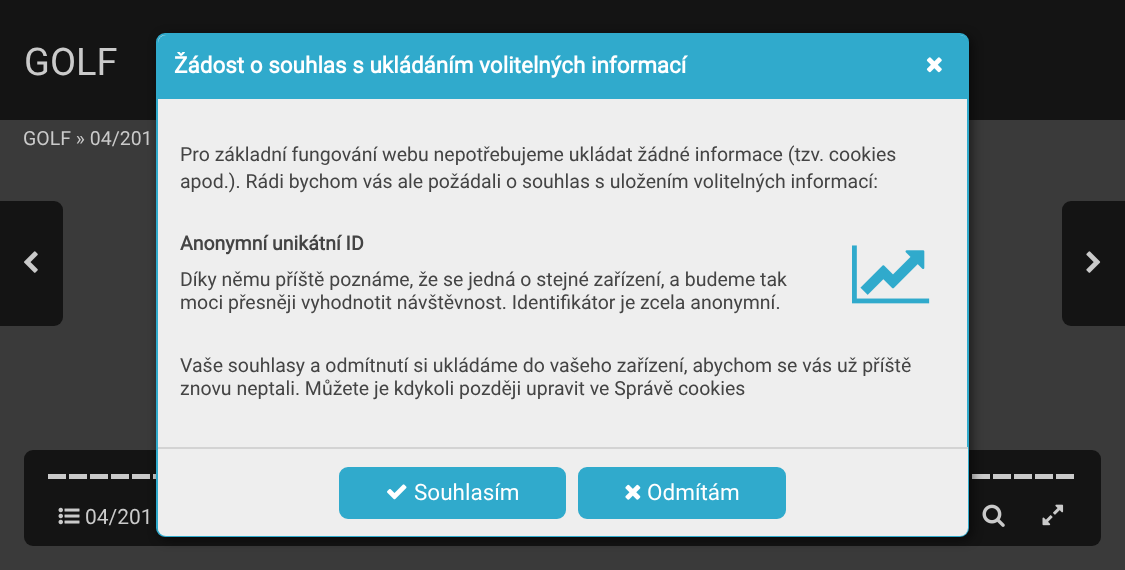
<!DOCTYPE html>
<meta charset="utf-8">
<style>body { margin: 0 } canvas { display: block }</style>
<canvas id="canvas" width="1125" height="570"></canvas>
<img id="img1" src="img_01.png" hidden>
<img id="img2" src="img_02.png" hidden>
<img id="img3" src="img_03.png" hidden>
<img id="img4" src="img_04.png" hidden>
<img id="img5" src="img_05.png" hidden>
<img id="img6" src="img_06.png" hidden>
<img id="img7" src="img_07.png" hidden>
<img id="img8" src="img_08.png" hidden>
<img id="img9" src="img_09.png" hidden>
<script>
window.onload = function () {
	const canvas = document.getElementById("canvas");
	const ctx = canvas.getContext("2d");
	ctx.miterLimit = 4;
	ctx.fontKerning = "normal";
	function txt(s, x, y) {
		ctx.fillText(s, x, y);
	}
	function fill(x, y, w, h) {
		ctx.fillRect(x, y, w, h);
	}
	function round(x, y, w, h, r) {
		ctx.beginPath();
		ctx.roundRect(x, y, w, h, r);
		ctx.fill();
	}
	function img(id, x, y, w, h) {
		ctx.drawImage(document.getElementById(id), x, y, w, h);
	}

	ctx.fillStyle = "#3A3A3A";
	fill(0, 0, 1125, 570);
	ctx.fillStyle = "#141414";
	fill(0, 0, 1125, 120);
	ctx.beginPath();
	ctx.roundRect(0, 201, 63, 125, [0, 9, 9, 0]);
	ctx.fill();
	img("img1", 24, 251, 14, 22);
	ctx.beginPath();
	ctx.roundRect(1062, 201, 63, 125, [9, 0, 0, 9]);
	ctx.fill();
	img("img2", 1086, 251, 15, 22);
	round(24, 450, 1077, 96, 9);
	ctx.fillStyle = "#CACACA";
	fill(48, 474, 18, 5);
	fill(69, 474, 18, 5);
	fill(90, 474, 18, 5);
	fill(111, 474, 18, 5);
	fill(132, 474, 18, 5);
	fill(153, 474, 3, 5);
	fill(972, 474, 18, 5);
	fill(993, 474, 18, 5);
	fill(1014, 474, 18, 5);
	fill(1035, 474, 18, 5);
	fill(1056, 474, 18, 5);
	img("img3", 58, 507, 22, 18);
	img("img4", 982, 504, 23, 23);
	img("img5", 1042, 504, 22, 22);
	ctx.fillStyle = "rgba(0, 0, 0, 0.53)";
	ctx.filter = "blur(5.5px)";
	ctx.beginPath();
	ctx.roundRect(159, 36, 813, 504, 9);
	ctx.fill();
	ctx.filter = "none";
	ctx.fillStyle = "#EEEEEE";
	ctx.beginPath();
	ctx.roundRect(157, 34, 811, 502, 8);
	ctx.fill();
	ctx.strokeStyle = "#30AACC";
	ctx.lineWidth = 2;
	ctx.stroke();
	ctx.fillStyle = "#30AACC";
	ctx.beginPath();
	ctx.roundRect(158, 35, 810, 64, [8, 8, 0, 0]);
	ctx.fill();
	img("img6", 926, 57, 16, 16);
	img("img7", 852, 245, 78, 59);
	ctx.fillStyle = "#EEEEEE";
	ctx.beginPath();
	ctx.roundRect(158, 447, 810, 89, [0, 0, 8, 8]);
	ctx.fill();
	ctx.fillStyle = "#D3D3D3";
	fill(158, 447, 810, 2);
	ctx.fillStyle = "#30AACC";
	ctx.beginPath();
	ctx.roundRect(340, 468, 225, 50, 8);
	ctx.fill();
	ctx.stroke();
	img("img8", 387, 484, 20, 16);
	ctx.beginPath();
	ctx.roundRect(579, 468, 206, 50, 8);
	ctx.fill();
	ctx.stroke();
	img("img9", 625, 484, 16, 16);
	ctx.font = "38px Roboto";
	ctx.fillStyle = "#CACACA";
	txt("GOLF", 24, 75);
	ctx.font = "19.5px Roboto";
	txt("GOLF » 04/201", 23, 145);
	ctx.font = "21px Roboto";
	txt("04/201", 85, 524);
	ctx.font = "bold 22.5px Roboto";
	ctx.fillStyle = "#FFFFFF";
	txt("Žádost o souhlas s ukládáním volitelných informací", 174, 73);
	ctx.font = "19.5px Roboto";
	ctx.fillStyle = "#444444";
	txt("Pro základní fungování webu nepotřebujeme ukládat žádné informace (tzv. cookies", 180, 161);
	txt("apod.). Rádi bychom vás ale požádali o souhlas s uložením volitelných informací:", 180, 188);
	ctx.font = "bold 19.5px Roboto";
	txt("Anonymní unikátní ID", 180, 250);
	ctx.font = "19.5px Roboto";
	txt("Díky němu příště poznáme, že se jedná o stejné zařízení, a budeme tak", 180, 286);
	txt("moci přesněji vyhodnotit návštěvnost. Identifikátor je zcela anonymní.", 180, 309);
	txt("Vaše souhlasy a odmítnutí si ukládáme do vašeho zařízení, abychom se vás už příště", 180, 372);
	txt("znovu neptali. Můžete je kdykoli později upravit ve Správě cookies", 180, 395);
	ctx.font = "22.5px Roboto";
	ctx.fillStyle = "#FFFFFF";
	txt("Souhlasím", 414, 500);
	txt("Odmítám", 647, 500);
};
</script>
